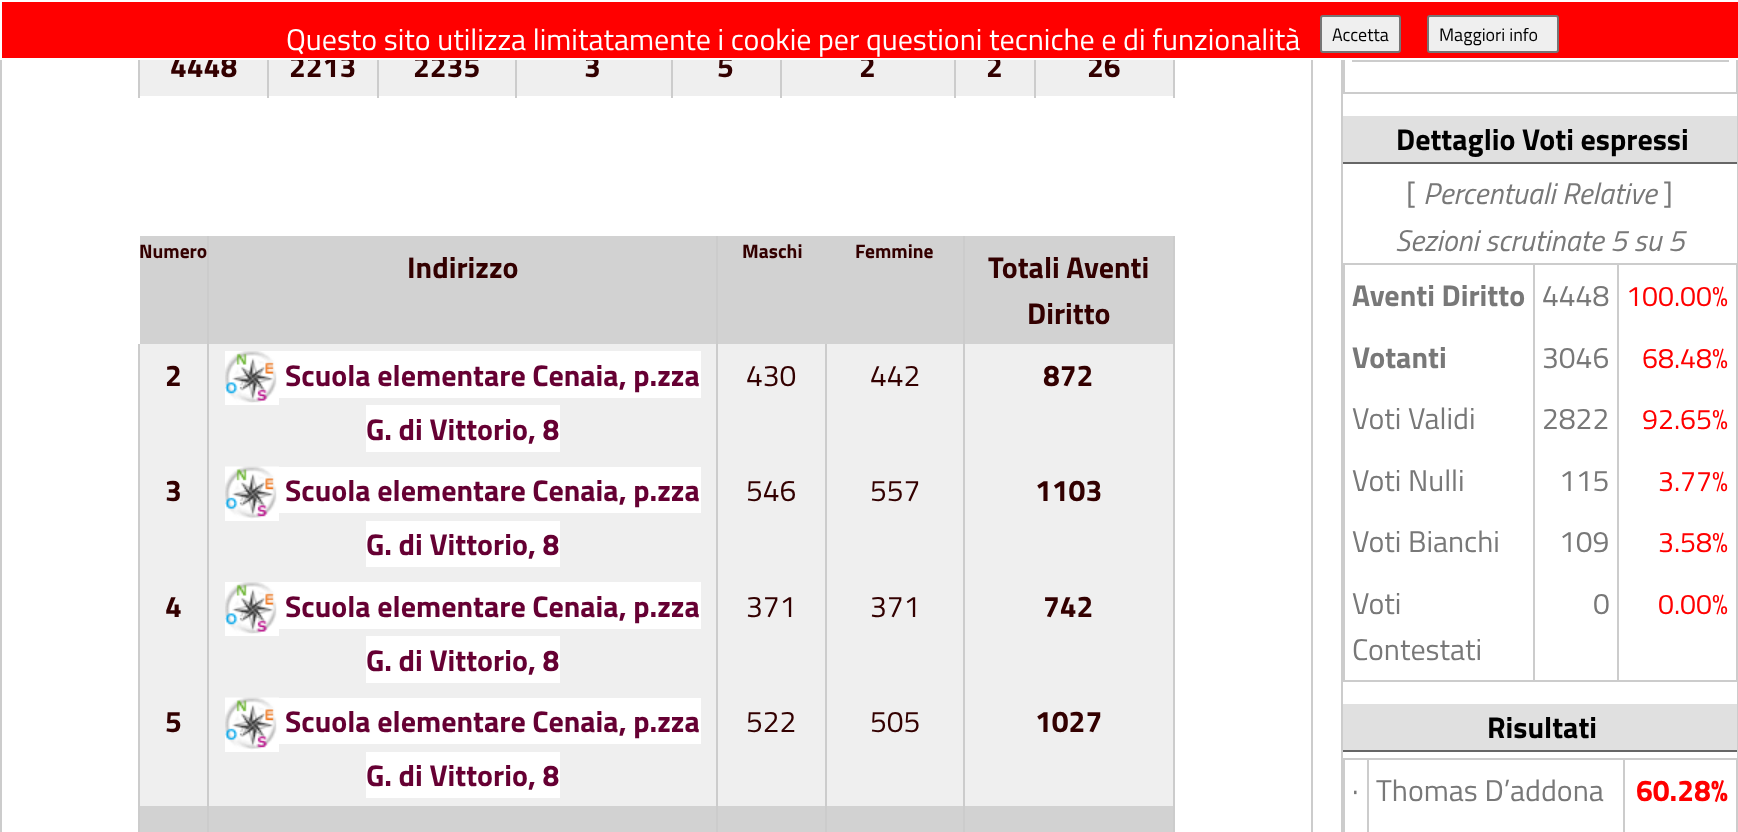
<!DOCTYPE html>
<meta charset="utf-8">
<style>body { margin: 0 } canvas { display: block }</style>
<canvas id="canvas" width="1738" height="832"></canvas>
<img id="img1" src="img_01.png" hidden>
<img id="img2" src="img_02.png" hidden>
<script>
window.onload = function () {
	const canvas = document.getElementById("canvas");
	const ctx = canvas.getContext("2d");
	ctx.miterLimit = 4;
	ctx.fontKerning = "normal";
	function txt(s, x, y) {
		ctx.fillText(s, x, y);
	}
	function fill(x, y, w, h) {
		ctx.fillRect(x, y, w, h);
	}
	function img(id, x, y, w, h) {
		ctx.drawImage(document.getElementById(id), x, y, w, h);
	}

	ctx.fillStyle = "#FFFFFF";
	fill(0, 0, 1738, 832);
	ctx.fillStyle = "#CCCCCC";
	fill(1737, 60, 1, 772);
	fill(0, 60, 2, 772);
	fill(1736, 60, 1, 33);
	fill(1343, 92, 394, 2);
	fill(1343, 60, 2, 33);
	fill(1352, 60, 377, 2);
	ctx.fillStyle = "#E0E0E0";
	fill(1343, 116, 394, 46);
	ctx.fillStyle = "#666666";
	fill(1343, 162, 394, 2);
	ctx.fillStyle = "#CCCCCC";
	fill(1343, 263, 394, 2);
	fill(1736, 263, 1, 418);
	fill(1343, 680, 394, 2);
	fill(1343, 263, 2, 418);
	fill(1533, 263, 2, 418);
	fill(1617, 263, 2, 418);
	ctx.fillStyle = "#E0E0E0";
	fill(1343, 704, 394, 46);
	ctx.fillStyle = "#666666";
	fill(1343, 750, 394, 2);
	ctx.fillStyle = "#CCCCCC";
	fill(1343, 758, 394, 2);
	fill(1736, 758, 1, 74);
	fill(1343, 758, 2, 74);
	fill(1367, 758, 2, 74);
	fill(1623, 758, 2, 74);
	ctx.fillStyle = "#EFEFEF";
	fill(140, 60, 1033, 36);
	ctx.fillStyle = "#CCCCCC";
	fill(138, 60, 2, 38);
	fill(267, 60, 2, 38);
	fill(377, 60, 2, 38);
	fill(515, 60, 2, 38);
	fill(671, 60, 2, 38);
	fill(780, 60, 2, 38);
	fill(954, 60, 2, 38);
	fill(1173, 60, 2, 38);
	fill(1034, 60, 2, 38);
	ctx.fillStyle = "#D2D2D2";
	fill(140, 806, 1033, 26);
	ctx.fillStyle = "#CCCCCC";
	fill(138, 344, 2, 488);
	ctx.fillStyle = "#D2D2D2";
	fill(140, 236, 1033, 108);
	ctx.fillStyle = "#EFEFEF";
	fill(140, 344, 1033, 462);
	ctx.fillStyle = "#CCCCCC";
	fill(207, 236, 2, 596);
	fill(716, 236, 2, 596);
	fill(825, 344, 2, 488);
	fill(1173, 236, 2, 596);
	fill(963, 236, 2, 596);
	ctx.fillStyle = "#FFFFFF";
	fill(225, 351, 54, 54);
	img("img1", 225, 351, 52, 52);
	fill(279, 351, 422, 47);
	fill(366, 405, 194, 47);
	img("img2", 225, 466, 54, 53);
	fill(225, 519, 54, 2);
	fill(279, 467, 422, 46);
	fill(366, 521, 194, 46);
	fill(225, 582, 54, 54);
	img("img1", 225, 582, 52, 52);
	fill(279, 582, 422, 47);
	fill(366, 636, 194, 47);
	img("img2", 225, 697, 54, 53);
	fill(225, 750, 54, 2);
	fill(279, 698, 422, 46);
	fill(366, 752, 194, 46);
	ctx.fillStyle = "#CCCCCC";
	fill(1341, 60, 2, 772);
	fill(1311, 60, 2, 772);
	ctx.font = "bold 30px Titillium Web";
	ctx.fillStyle = "#000000";
	txt("Dettaglio Voti espressi", 1396, 150);
	ctx.font = "30px Titillium Web";
	ctx.fillStyle = "#787878";
	txt("[", 1406, 204);
	ctx.font = "italic 30px Titillium Web";
	txt("Percentuali Relative", 1423, 204);
	ctx.font = "30px Titillium Web";
	txt("]", 1663, 204);
	ctx.font = "italic 30px Titillium Web";
	txt("Sezioni scrutinate 5 su 5", 1395, 251);
	ctx.font = "bold 30px Titillium Web";
	txt("Aventi Diritto", 1352, 306);
	ctx.font = "30px Titillium Web";
	txt("4448", 1542, 306);
	ctx.font = "28.5px Titillium Web";
	ctx.fillStyle = "#FF0000";
	txt("100.00%", 1626, 306);
	ctx.font = "bold 30px Titillium Web";
	ctx.fillStyle = "#787878";
	txt("Votanti", 1352, 368);
	ctx.font = "30px Titillium Web";
	txt("3046", 1542, 368);
	ctx.font = "28.5px Titillium Web";
	ctx.fillStyle = "#FF0000";
	txt("68.48%", 1642, 368);
	ctx.font = "30px Titillium Web";
	ctx.fillStyle = "#787878";
	txt("Voti Validi", 1352, 429);
	txt("2822", 1542, 429);
	ctx.font = "28.5px Titillium Web";
	ctx.fillStyle = "#FF0000";
	txt("92.65%", 1642, 429);
	ctx.font = "30px Titillium Web";
	ctx.fillStyle = "#787878";
	txt("Voti Nulli", 1352, 491);
	txt("115", 1559, 491);
	ctx.font = "28.5px Titillium Web";
	ctx.fillStyle = "#FF0000";
	txt("3.77%", 1658, 491);
	ctx.font = "30px Titillium Web";
	ctx.fillStyle = "#787878";
	txt("Voti Bianchi", 1352, 552);
	txt("109", 1559, 552);
	ctx.font = "28.5px Titillium Web";
	ctx.fillStyle = "#FF0000";
	txt("3.58%", 1658, 552);
	ctx.font = "30px Titillium Web";
	ctx.fillStyle = "#787878";
	txt("Voti", 1352, 614);
	txt("Contestati", 1352, 660);
	txt("0", 1593, 614);
	ctx.font = "28.5px Titillium Web";
	ctx.fillStyle = "#FF0000";
	txt("0.00%", 1658, 614);
	ctx.font = "bold 30px Titillium Web";
	ctx.fillStyle = "#000000";
	txt("Risultati", 1487, 738);
	ctx.font = "30px Titillium Web";
	ctx.fillStyle = "#787878";
	txt("·", 1352, 801);
	txt("Thomas D’addona", 1376, 801);
	ctx.font = "bold 30px Titillium Web";
	ctx.fillStyle = "#FF0000";
	txt("60.28%", 1636, 801);
	ctx.fillStyle = "#330000";
	txt("4448", 170, 77);
	txt("2213", 289, 77);
	txt("2235", 413, 77);
	txt("3", 584, 77);
	txt("5", 717, 77);
	txt("2", 859, 77);
	txt("2", 986, 77);
	txt("26", 1087, 77);
	ctx.fillStyle = "#FF0000";
	ctx.beginPath();
	ctx.rect(1, 1, 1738, 58);
	ctx.fill();
	ctx.strokeStyle = "#FFFFFF";
	ctx.lineWidth = 2;
	ctx.stroke();
	ctx.fillStyle = "#EFEFEF";
	ctx.beginPath();
	ctx.roundRect(1428, 16, 130, 36, 2);
	ctx.fill();
	ctx.strokeStyle = "#767676";
	ctx.stroke();
	ctx.font = "18px Titillium Web";
	ctx.fillStyle = "#000000";
	txt("Maggiori info", 1439, 41);
	ctx.fillStyle = "#EFEFEF";
	ctx.beginPath();
	ctx.roundRect(1321, 16, 79, 36, 2);
	ctx.fill();
	ctx.stroke();
	ctx.fillStyle = "#000000";
	txt("Accetta", 1332, 41);
	ctx.font = "30px Titillium Web";
	ctx.fillStyle = "#FFFFFF";
	txt("Questo sito utilizza limitatamente i cookie per questioni tecniche e di funzionalità", 286, 50);
	ctx.font = "bold 19.5px Titillium Web";
	ctx.fillStyle = "#330000";
	txt("Numero", 139, 258);
	txt("Maschi", 742, 258);
	txt("Femmine", 855, 258);
	ctx.font = "bold 30px Titillium Web";
	txt("Indirizzo", 407, 278);
	txt("Totali Aventi", 988, 278);
	txt("Diritto", 1027, 324);
	txt("2", 165, 386);
	ctx.fillStyle = "#660033";
	txt("Scuola elementare Cenaia, p.zza", 285, 386);
	txt("G. di Vittorio, 8", 366, 440);
	ctx.font = "30px Titillium Web";
	ctx.fillStyle = "#330000";
	txt("430", 746, 386);
	txt("442", 870, 386);
	ctx.font = "bold 30px Titillium Web";
	txt("872", 1043, 386);
	txt("3", 165, 501);
	ctx.fillStyle = "#660033";
	txt("Scuola elementare Cenaia, p.zza", 285, 501);
	txt("G. di Vittorio, 8", 366, 555);
	ctx.font = "30px Titillium Web";
	ctx.fillStyle = "#330000";
	txt("546", 746, 501);
	txt("557", 870, 501);
	ctx.font = "bold 30px Titillium Web";
	txt("1103", 1035, 501);
	txt("4", 165, 617);
	ctx.fillStyle = "#660033";
	txt("Scuola elementare Cenaia, p.zza", 285, 617);
	txt("G. di Vittorio, 8", 366, 671);
	ctx.font = "30px Titillium Web";
	ctx.fillStyle = "#330000";
	txt("371", 746, 617);
	txt("371", 870, 617);
	ctx.font = "bold 30px Titillium Web";
	txt("742", 1043, 617);
	txt("5", 165, 732);
	ctx.fillStyle = "#660033";
	txt("Scuola elementare Cenaia, p.zza", 285, 732);
	txt("G. di Vittorio, 8", 366, 786);
	ctx.font = "30px Titillium Web";
	ctx.fillStyle = "#330000";
	txt("522", 746, 732);
	txt("505", 870, 732);
	ctx.font = "bold 30px Titillium Web";
	txt("1027", 1035, 732);
};
</script>
